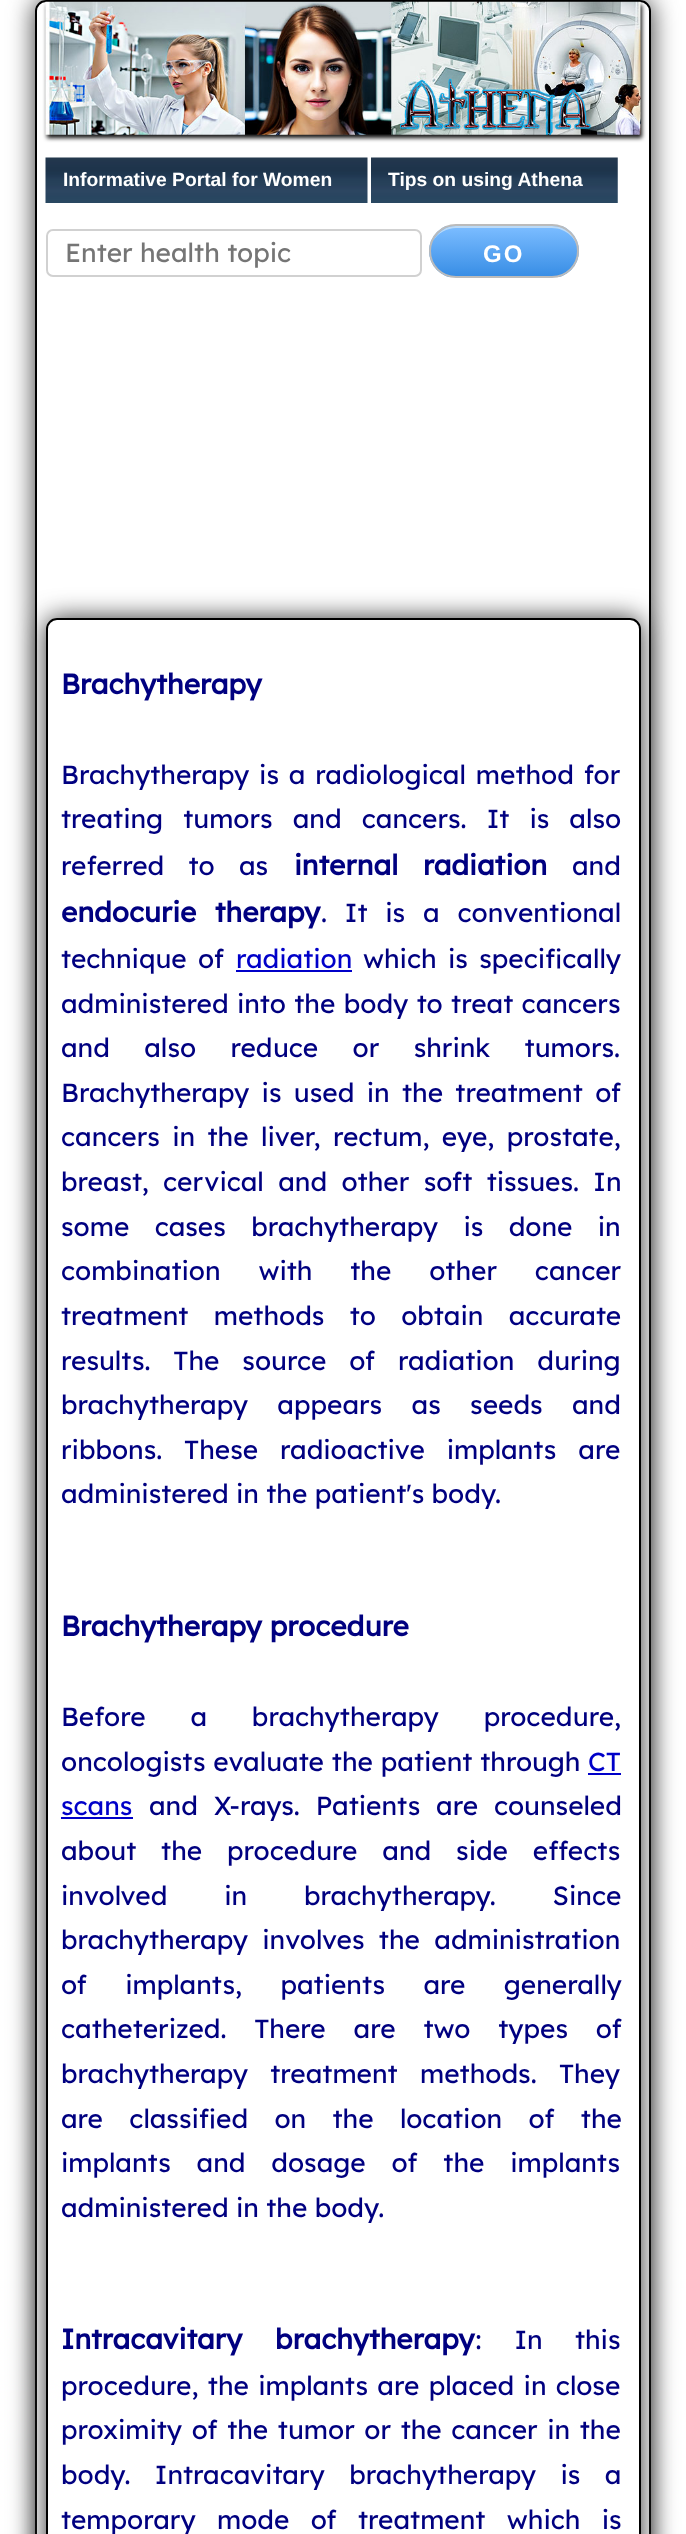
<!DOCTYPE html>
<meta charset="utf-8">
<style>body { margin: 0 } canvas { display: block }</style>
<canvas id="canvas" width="686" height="2534"></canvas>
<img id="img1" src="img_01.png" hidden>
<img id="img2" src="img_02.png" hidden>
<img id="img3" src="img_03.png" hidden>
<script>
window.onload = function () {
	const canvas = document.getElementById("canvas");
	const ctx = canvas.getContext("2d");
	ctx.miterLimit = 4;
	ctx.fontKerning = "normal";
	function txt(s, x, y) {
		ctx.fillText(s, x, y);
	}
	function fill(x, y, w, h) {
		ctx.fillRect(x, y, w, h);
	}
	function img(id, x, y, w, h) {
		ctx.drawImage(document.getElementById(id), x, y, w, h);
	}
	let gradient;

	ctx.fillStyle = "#FFFFFF";
	fill(0, 0, 686, 2534);
	ctx.save();
	ctx.beginPath();
	ctx.moveTo(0, 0);
	ctx.lineTo(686, 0);
	ctx.lineTo(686, 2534);
	ctx.lineTo(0, 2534);
	ctx.closePath();
	ctx.moveTo(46, 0);
	ctx.lineTo(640, 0);
	ctx.bezierCurveTo(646, 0, 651, 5, 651, 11);
	ctx.lineTo(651, 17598);
	ctx.bezierCurveTo(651, 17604, 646, 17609, 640, 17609);
	ctx.lineTo(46, 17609);
	ctx.bezierCurveTo(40, 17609, 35, 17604, 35, 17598);
	ctx.lineTo(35, 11);
	ctx.bezierCurveTo(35, 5, 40, 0, 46, 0);
	ctx.closePath();
	ctx.clip("evenodd");
	ctx.fillStyle = "#333333";
	ctx.filter = "blur(13px)";
	ctx.beginPath();
	ctx.roundRect(35, 0, 616, 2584, 11);
	ctx.fill();
	ctx.filter = "none";
	ctx.restore();
	ctx.beginPath();
	ctx.roundRect(36, 1, 614, 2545, 10);
	ctx.strokeStyle = "#000000";
	ctx.lineWidth = 2;
	ctx.stroke();
	ctx.fillStyle = "#111111";
	ctx.filter = "blur(2px)";
	ctx.beginPath();
	ctx.rect(47, 5, 595, 133);
	ctx.fill();
	ctx.filter = "none";
	img("img1", 45, 1, 596, 134);
	img("img2", 45, 157, 323, 46);
	img("img3", 371, 157, 247, 46);
	ctx.beginPath();
	ctx.roundRect(47, 230, 374, 46, 6);
	ctx.strokeStyle = "#D1D1D1";
	ctx.stroke();
	ctx.save();
	ctx.beginPath();
	ctx.roundRect(429, 224, 150, 54, 27);
	ctx.clip();
	gradient = ctx.createLinearGradient(431, 226, 431, 277);
	gradient.addColorStop(0.05, "#79BBFF");
	gradient.addColorStop(1, "#378DE5");
	ctx.fillStyle = gradient;
	fill(429, 226, 150, 51);
	ctx.restore();
	ctx.fillStyle = "#BBDAF7";
	ctx.beginPath();
	ctx.moveTo(456, 228);
	ctx.lineTo(552, 228);
	ctx.bezierCurveTo(566, 228, 578, 239, 578, 252);
	ctx.bezierCurveTo(578, 237, 567, 226, 552, 226);
	ctx.lineTo(456, 226);
	ctx.bezierCurveTo(446, 226, 438, 232, 433, 241);
	ctx.bezierCurveTo(438, 233, 447, 228, 456, 228);
	ctx.closePath();
	ctx.fill();
	ctx.beginPath();
	ctx.roundRect(430, 225, 148, 52, 26);
	ctx.strokeStyle = "#BBBBBB";
	ctx.stroke();
	ctx.save();
	ctx.beginPath();
	ctx.moveTo(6, 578);
	ctx.lineTo(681, 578);
	ctx.lineTo(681, 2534);
	ctx.lineTo(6, 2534);
	ctx.closePath();
	ctx.moveTo(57, 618);
	ctx.lineTo(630, 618);
	ctx.bezierCurveTo(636, 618, 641, 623, 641, 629);
	ctx.lineTo(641, 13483);
	ctx.bezierCurveTo(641, 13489, 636, 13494, 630, 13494);
	ctx.lineTo(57, 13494);
	ctx.bezierCurveTo(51, 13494, 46, 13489, 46, 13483);
	ctx.lineTo(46, 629);
	ctx.bezierCurveTo(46, 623, 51, 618, 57, 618);
	ctx.closePath();
	ctx.clip("evenodd");
	ctx.fillStyle = "#333333";
	ctx.filter = "blur(13px)";
	ctx.beginPath();
	ctx.roundRect(46, 618, 595, 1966, 11);
	ctx.fill();
	ctx.filter = "none";
	ctx.restore();
	ctx.beginPath();
	ctx.roundRect(47, 619, 593, 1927, 10);
	ctx.strokeStyle = "#000000";
	ctx.stroke();
	ctx.fillStyle = "#0000C9";
	fill(236, 970, 116, 2);
	fill(588, 1773, 33, 2);
	fill(61, 1817, 72, 2);
	ctx.font = "bold 19.25px Liberation Sans";
	ctx.fillStyle = "#FFFFFF";
	txt("Informative Portal for Women", 63, 186);
	txt("Tips on using Athena", 388, 186);
	ctx.font = "26.25px Lexend Deca";
	ctx.fillStyle = "#757575";
	txt("Enter health topic", 65, 262);
	ctx.letterSpacing = "2px";
	ctx.font = "bold 24px Liberation Sans";
	ctx.fillStyle = "#FFFFFF";
	txt("GO", 483, 262);
	ctx.letterSpacing = "0px";
	ctx.font = "bold 28px Lexend Deca";
	ctx.fillStyle = "#000080";
	txt("Brachytherapy", 61, 694);
	ctx.wordSpacing = "2.5px";
	ctx.font = "26.25px Lexend Deca";
	txt("Brachytherapy is a radiological method for", 61, 784);
	ctx.wordSpacing = "12.75px";
	txt("treating tumors and cancers. It is also", 61, 828);
	ctx.wordSpacing = "17px";
	txt("referred to as", 61, 875);
	ctx.font = "bold 28px Lexend Deca";
	txt("internal radiation", 294, 875);
	ctx.wordSpacing = "0px";
	ctx.font = "26.25px Lexend Deca";
	txt("and", 572, 875);
	ctx.wordSpacing = "10.5px";
	ctx.font = "bold 28px Lexend Deca";
	txt("endocurie therapy", 61, 922);
	ctx.font = "26.25px Lexend Deca";
	txt(". It is a conventional", 321, 922);
	ctx.wordSpacing = "4px";
	txt("technique of", 61, 968);
	ctx.wordSpacing = "0px";
	ctx.fillStyle = "#0000C9";
	txt("radiation", 236, 968);
	ctx.wordSpacing = "4px";
	ctx.fillStyle = "#000080";
	txt("which is specifically", 363, 968);
	ctx.wordSpacing = "1px";
	txt("administered into the body to treat cancers", 61, 1013);
	ctx.wordSpacing = "27px";
	txt("and also reduce or shrink tumors.", 61, 1057);
	ctx.wordSpacing = "5px";
	txt("Brachytherapy is used in the treatment of", 61, 1102);
	txt("cancers in the liver, rectum, eye, prostate,", 61, 1146);
	ctx.wordSpacing = "7px";
	txt("breast, cervical and other soft tissues. In", 61, 1191);
	ctx.wordSpacing = "18px";
	txt("some cases brachytherapy is done in", 61, 1236);
	ctx.wordSpacing = "30.5px";
	txt("combination with the other cancer", 61, 1280);
	ctx.wordSpacing = "18px";
	txt("treatment methods to obtain accurate", 61, 1325);
	ctx.wordSpacing = "15.5px";
	txt("results. The source of radiation during", 61, 1370);
	ctx.wordSpacing = "22px";
	txt("brachytherapy appears as seeds and", 61, 1414);
	ctx.wordSpacing = "14.5px";
	txt("ribbons. These radioactive implants are", 61, 1459);
	ctx.wordSpacing = "0px";
	txt("administered in the patient's body.", 61, 1503);
	ctx.font = "bold 28px Lexend Deca";
	txt("Brachytherapy procedure", 61, 1636);
	ctx.wordSpacing = "37.5px";
	ctx.font = "26.25px Lexend Deca";
	txt("Before a brachytherapy procedure,", 61, 1726);
	ctx.wordSpacing = "0.5px";
	txt("oncologists evaluate the patient through", 61, 1771);
	ctx.wordSpacing = "0px";
	ctx.fillStyle = "#0000C9";
	txt("CT", 588, 1771);
	txt("scans", 61, 1815);
	ctx.wordSpacing = "8.5px";
	ctx.fillStyle = "#000080";
	txt("and X-rays. Patients are counseled", 149, 1815);
	ctx.wordSpacing = "17.5px";
	txt("about the procedure and side effects", 61, 1860);
	ctx.wordSpacing = "49.5px";
	txt("involved in brachytherapy. Since", 61, 1905);
	ctx.wordSpacing = "7px";
	txt("brachytherapy involves the administration", 61, 1949);
	ctx.wordSpacing = "31px";
	txt("of implants, patients are generally", 61, 1994);
	ctx.wordSpacing = "20.5px";
	txt("catheterized. There are two types of", 61, 2038);
	ctx.wordSpacing = "15px";
	txt("brachytherapy treatment methods. They", 61, 2083);
	ctx.wordSpacing = "19px";
	txt("are classified on the location of the", 61, 2128);
	ctx.wordSpacing = "18.5px";
	txt("implants and dosage of the implants", 61, 2172);
	ctx.wordSpacing = "0px";
	txt("administered in the body.", 61, 2217);
	ctx.wordSpacing = "25px";
	ctx.font = "bold 28px Lexend Deca";
	txt("Intracavitary brachytherapy", 61, 2349);
	ctx.font = "26.25px Lexend Deca";
	txt(": In this", 475, 2349);
	ctx.wordSpacing = "2px";
	txt("procedure, the implants are placed in close", 61, 2395);
	ctx.wordSpacing = "2.25px";
	txt("proximity of the tumor or the cancer in the", 61, 2439);
	ctx.wordSpacing = "17px";
	txt("body. Intracavitary brachytherapy is a", 61, 2484);
	ctx.wordSpacing = "14px";
	txt("temporary mode of treatment which is", 61, 2529);
};
</script>
